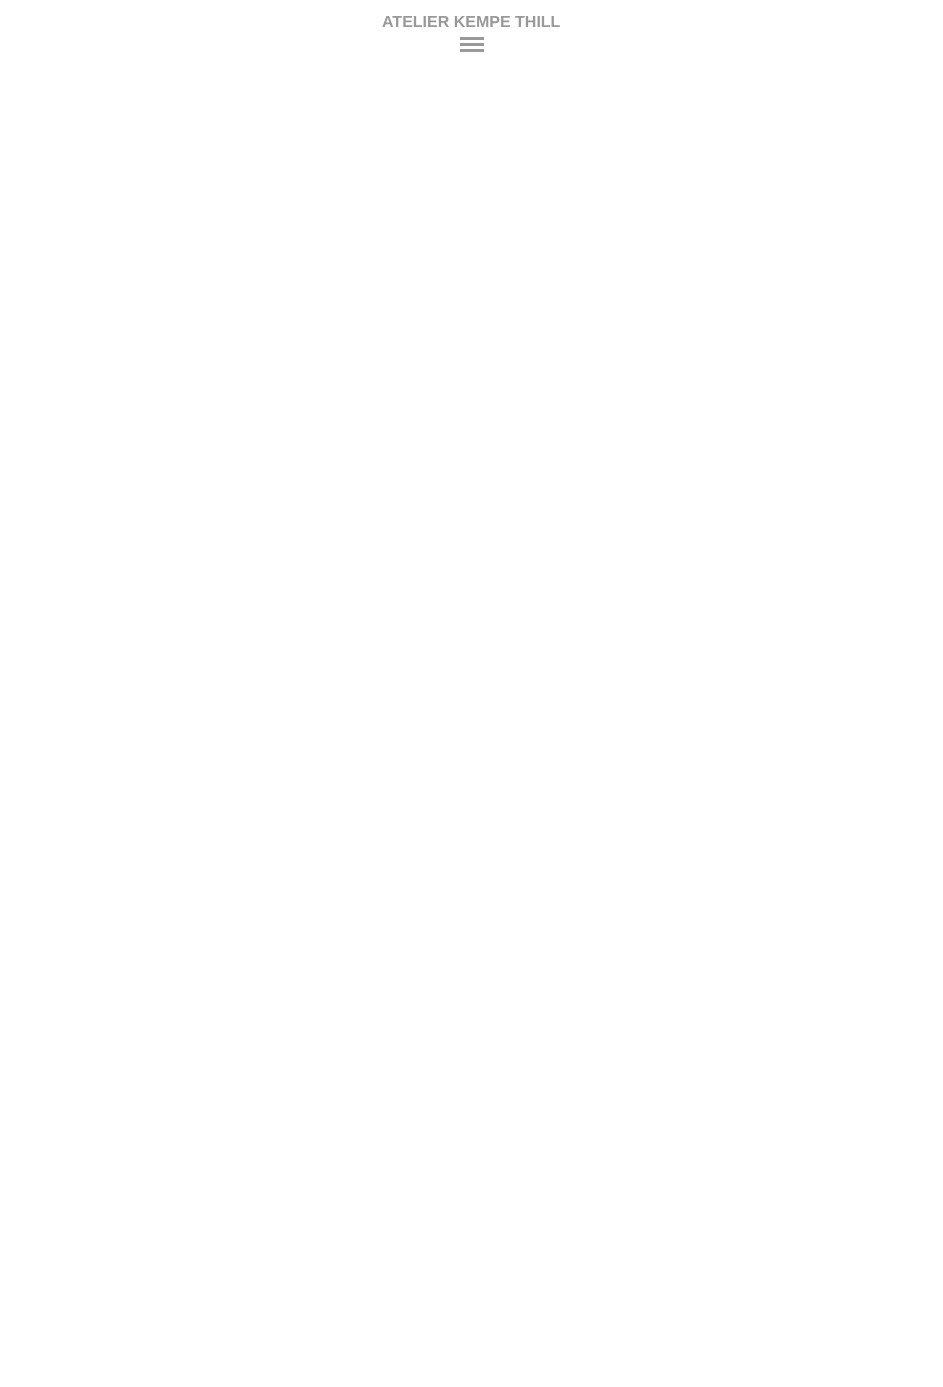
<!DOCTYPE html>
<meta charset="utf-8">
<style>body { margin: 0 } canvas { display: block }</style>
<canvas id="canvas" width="943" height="1387"></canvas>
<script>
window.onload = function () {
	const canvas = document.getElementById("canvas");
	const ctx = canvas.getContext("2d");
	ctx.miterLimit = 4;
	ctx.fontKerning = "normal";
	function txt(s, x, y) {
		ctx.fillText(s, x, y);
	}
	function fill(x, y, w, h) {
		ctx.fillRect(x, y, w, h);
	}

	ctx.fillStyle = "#FFFFFF";
	fill(0, 0, 943, 1387);
	ctx.fillStyle = "#999999";
	fill(460, 37, 24, 3);
	fill(460, 43, 24, 3);
	fill(460, 49, 24, 3);
	ctx.font = "bold 16px Liberation Sans";
	txt("ATELIER KEMPE THILL", 382, 27);
};
</script>
